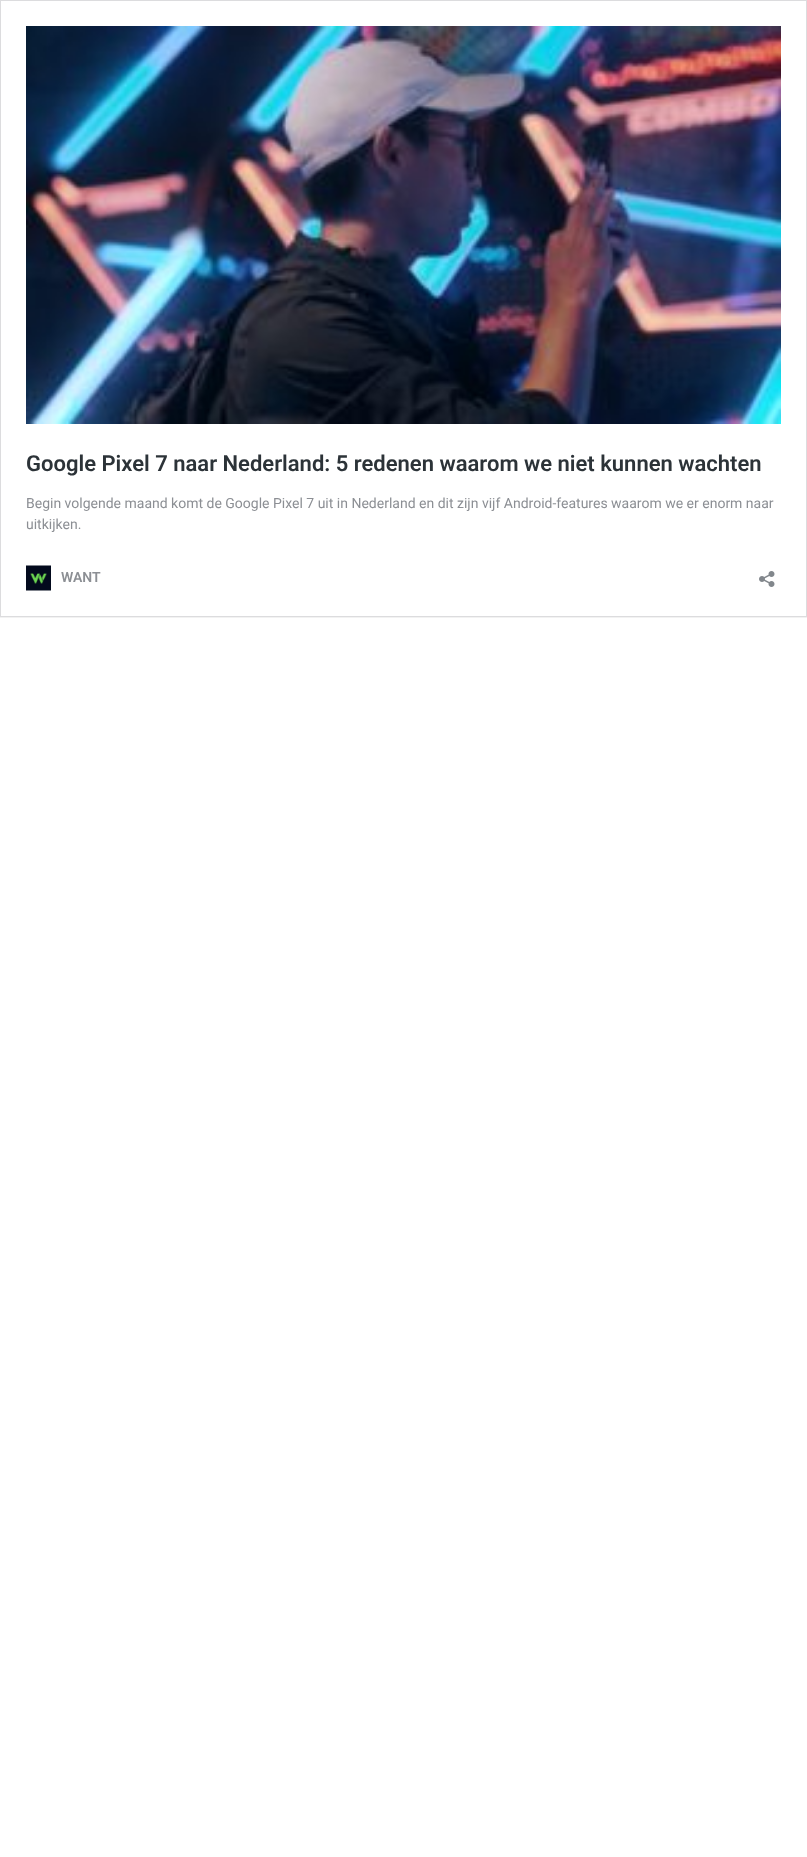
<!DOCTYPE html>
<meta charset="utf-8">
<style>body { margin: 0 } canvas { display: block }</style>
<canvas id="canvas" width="807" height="1857"></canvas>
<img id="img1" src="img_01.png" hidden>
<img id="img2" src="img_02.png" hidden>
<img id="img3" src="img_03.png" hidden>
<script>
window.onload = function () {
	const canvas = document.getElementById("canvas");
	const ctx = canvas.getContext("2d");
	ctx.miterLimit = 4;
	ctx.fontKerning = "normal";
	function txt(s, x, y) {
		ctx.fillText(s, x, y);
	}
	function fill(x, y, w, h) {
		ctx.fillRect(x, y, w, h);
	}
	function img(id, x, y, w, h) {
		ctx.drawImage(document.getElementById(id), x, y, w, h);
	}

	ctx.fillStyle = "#FFFFFF";
	fill(0, 0, 807, 1857);
	ctx.save();
	ctx.beginPath();
	ctx.rect(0, 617, 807, 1);
	ctx.clip();
	ctx.fillStyle = "rgba(0, 0, 0, 0.05)";
	ctx.filter = "blur(0.5px)";
	ctx.beginPath();
	ctx.rect(0, 1, 807, 617);
	ctx.fill();
	ctx.filter = "none";
	ctx.restore();
	ctx.strokeStyle = "#DCDCDE";
	ctx.strokeRect(0.5, 0.5, 806, 616);
	img("img1", 26, 26, 755, 398);
	img("img2", 26, 565, 25, 26);
	img("img3", 759, 571, 16, 16);
	ctx.font = "600 22px Roboto";
	ctx.fillStyle = "#2C3338";
	txt("Google Pixel 7 naar Nederland: 5 redenen waarom we niet kunnen wachten", 26, 471);
	ctx.font = "14px Roboto";
	ctx.fillStyle = "#8C8F94";
	txt("Begin volgende maand komt de Google Pixel 7 uit in Nederland en dit zijn vijf Android-features waarom we er enorm naar", 26, 508);
	txt("uitkijken.", 26, 529);
	ctx.font = "600 14px Roboto";
	txt("WANT", 61, 582);
};
</script>
